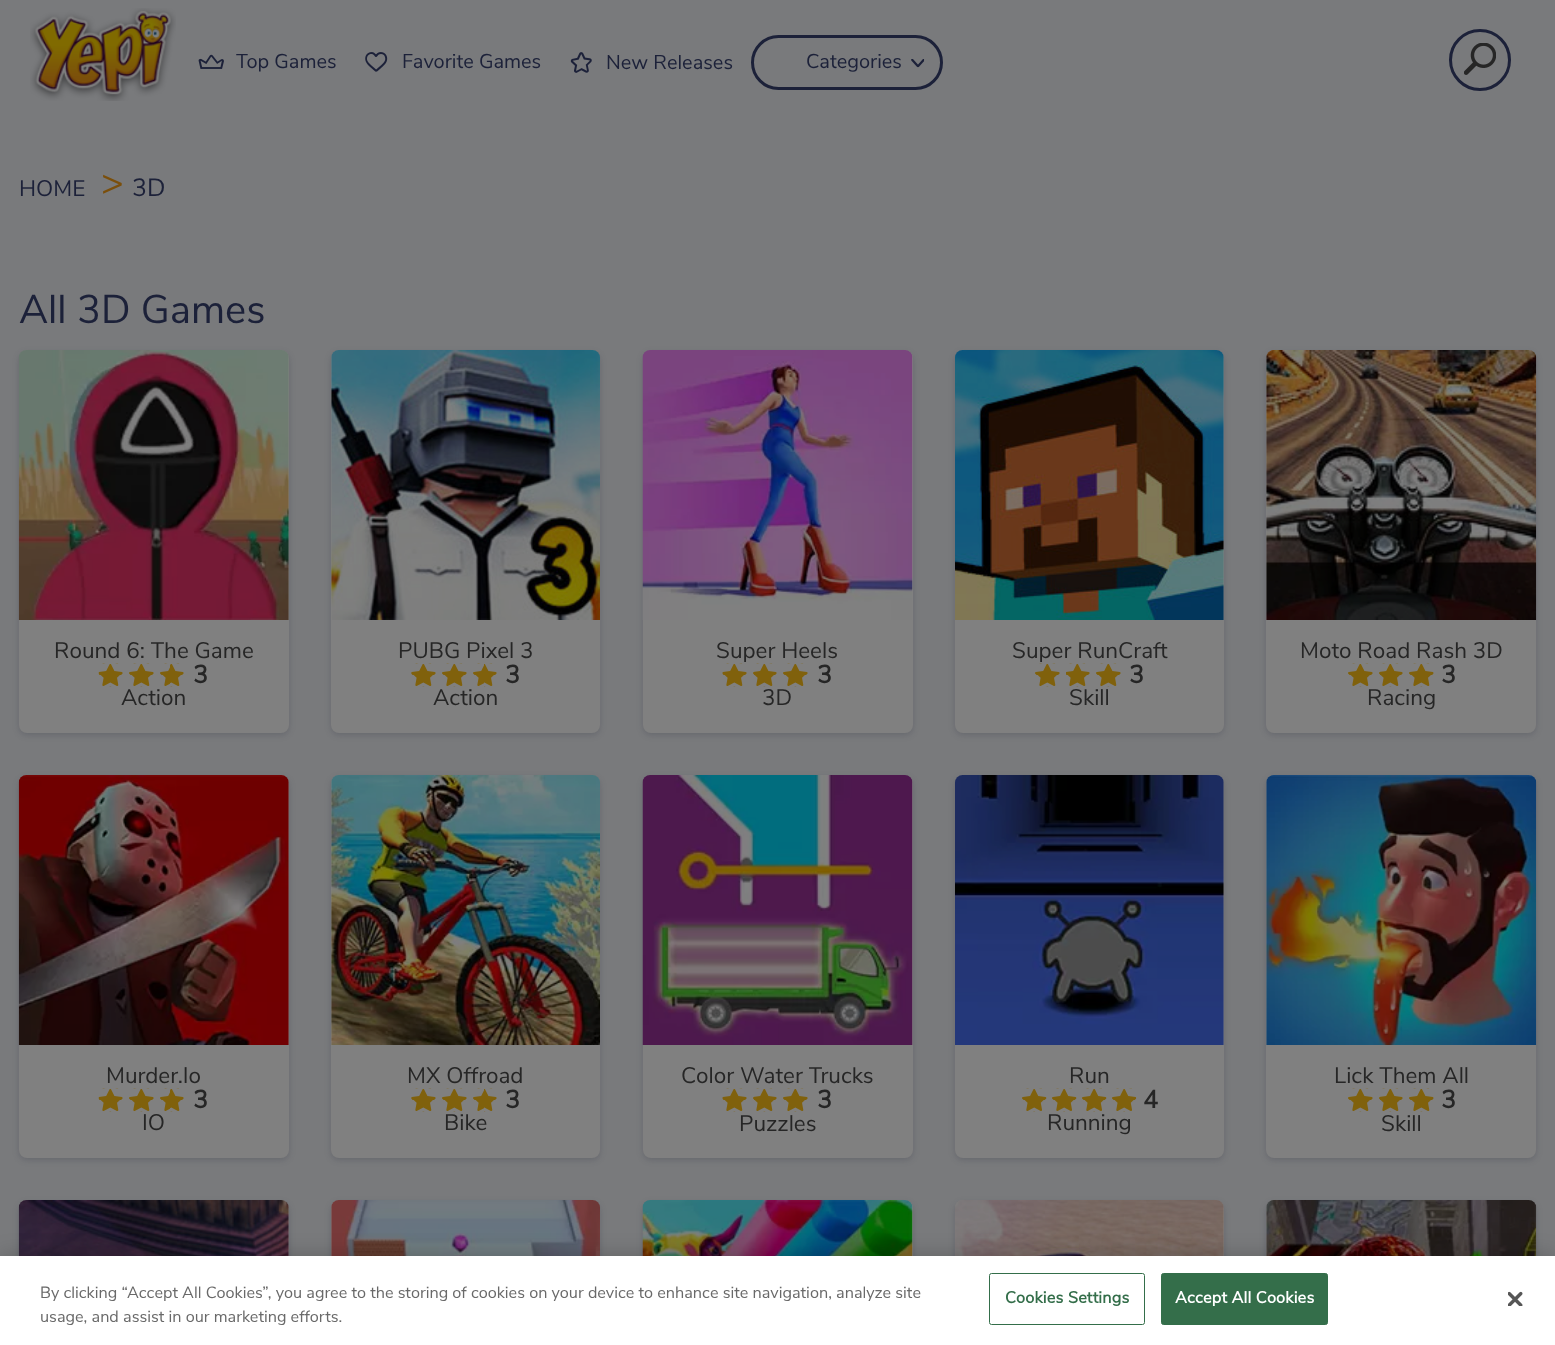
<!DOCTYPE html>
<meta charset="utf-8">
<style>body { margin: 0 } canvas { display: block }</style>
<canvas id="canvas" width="1555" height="1345"></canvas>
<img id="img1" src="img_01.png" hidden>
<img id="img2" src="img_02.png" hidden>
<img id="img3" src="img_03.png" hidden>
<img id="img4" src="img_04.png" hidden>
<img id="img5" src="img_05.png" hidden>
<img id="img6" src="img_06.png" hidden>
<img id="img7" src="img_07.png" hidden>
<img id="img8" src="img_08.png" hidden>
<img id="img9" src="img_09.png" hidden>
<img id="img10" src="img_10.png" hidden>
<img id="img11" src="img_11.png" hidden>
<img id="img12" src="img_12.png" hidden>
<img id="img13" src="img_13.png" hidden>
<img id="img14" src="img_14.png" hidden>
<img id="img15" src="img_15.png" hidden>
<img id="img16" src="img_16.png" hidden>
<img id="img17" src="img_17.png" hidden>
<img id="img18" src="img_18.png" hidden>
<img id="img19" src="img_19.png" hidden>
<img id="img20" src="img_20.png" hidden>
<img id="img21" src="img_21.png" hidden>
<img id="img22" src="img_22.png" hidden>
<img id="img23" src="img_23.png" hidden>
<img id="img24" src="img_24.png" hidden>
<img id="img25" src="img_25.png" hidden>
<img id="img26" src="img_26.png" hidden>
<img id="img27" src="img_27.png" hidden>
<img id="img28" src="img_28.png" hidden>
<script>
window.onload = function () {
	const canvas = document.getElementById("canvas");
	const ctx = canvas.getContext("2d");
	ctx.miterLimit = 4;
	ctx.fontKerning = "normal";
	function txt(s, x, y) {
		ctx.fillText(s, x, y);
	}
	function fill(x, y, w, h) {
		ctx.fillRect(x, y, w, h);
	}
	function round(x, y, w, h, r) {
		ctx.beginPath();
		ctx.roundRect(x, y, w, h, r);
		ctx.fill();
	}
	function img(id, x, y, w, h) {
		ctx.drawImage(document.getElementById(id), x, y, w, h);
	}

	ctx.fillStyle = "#797A7C";
	fill(0, 0, 1555, 1345);
	img("img1", 30, 8, 146, 93);
	img("img2", 198, 54, 26, 15);
	img("img3", 365, 52, 23, 20);
	img("img4", 570, 52, 22, 21);
	ctx.beginPath();
	ctx.roundRect(752.5, 36.5, 189, 52, 26);
	ctx.strokeStyle = "#1C2139";
	ctx.lineWidth = 3;
	ctx.stroke();
	img("img5", 911, 59, 14, 9);
	ctx.beginPath();
	ctx.arc(1480, 60, 29.5, 0, Math.PI * 2);
	ctx.stroke();
	img("img6", 1464, 43, 32, 32);
	ctx.fillStyle = "rgba(28, 33, 57, 0.2)";
	ctx.filter = "blur(3px)";
	ctx.beginPath();
	ctx.roundRect(19, 353, 270, 382, 8);
	ctx.fill();
	ctx.filter = "none";
	ctx.fillStyle = "#808080";
	round(19, 350, 270, 383, 8);
	img("img7", 18, 350, 271, 270);
	img("img8", 98, 663, 86, 24);
	ctx.fillStyle = "rgba(28, 33, 57, 0.2)";
	ctx.filter = "blur(3px)";
	ctx.beginPath();
	ctx.roundRect(331, 353, 269, 382, 8);
	ctx.fill();
	ctx.filter = "none";
	ctx.fillStyle = "#808080";
	round(331, 350, 269, 383, 8);
	img("img9", 331, 350, 269, 270);
	img("img10", 411, 663, 86, 24);
	ctx.fillStyle = "rgba(28, 33, 57, 0.2)";
	ctx.filter = "blur(3px)";
	ctx.beginPath();
	ctx.roundRect(643, 353, 270, 382, 8);
	ctx.fill();
	ctx.filter = "none";
	ctx.fillStyle = "#808080";
	round(643, 350, 270, 383, 8);
	img("img11", 642, 350, 271, 270);
	img("img12", 722, 663, 86, 24);
	ctx.fillStyle = "rgba(28, 33, 57, 0.2)";
	ctx.filter = "blur(3px)";
	ctx.beginPath();
	ctx.roundRect(955, 353, 269, 382, 8);
	ctx.fill();
	ctx.filter = "none";
	ctx.fillStyle = "#808080";
	round(955, 350, 269, 383, 8);
	img("img13", 955, 350, 269, 270);
	img("img14", 1035, 663, 86, 24);
	ctx.fillStyle = "rgba(28, 33, 57, 0.2)";
	ctx.filter = "blur(3px)";
	ctx.beginPath();
	ctx.roundRect(1266, 353, 270, 382, 8);
	ctx.fill();
	ctx.filter = "none";
	ctx.fillStyle = "#808080";
	round(1266, 350, 270, 383, 8);
	img("img15", 1266, 350, 271, 270);
	img("img16", 1348, 663, 86, 24);
	ctx.fillStyle = "rgba(28, 33, 57, 0.2)";
	ctx.filter = "blur(3px)";
	ctx.beginPath();
	ctx.roundRect(19, 778, 270, 382, 8);
	ctx.fill();
	ctx.filter = "none";
	ctx.fillStyle = "#808080";
	round(19, 775, 270, 383, 8);
	img("img17", 18, 775, 271, 270);
	img("img8", 98, 1088, 86, 24);
	ctx.fillStyle = "rgba(28, 33, 57, 0.2)";
	ctx.filter = "blur(3px)";
	ctx.beginPath();
	ctx.roundRect(331, 778, 269, 382, 8);
	ctx.fill();
	ctx.filter = "none";
	ctx.fillStyle = "#808080";
	round(331, 775, 269, 383, 8);
	img("img18", 331, 775, 269, 270);
	img("img10", 411, 1088, 86, 24);
	ctx.fillStyle = "rgba(28, 33, 57, 0.2)";
	ctx.filter = "blur(3px)";
	ctx.beginPath();
	ctx.roundRect(643, 778, 270, 382, 8);
	ctx.fill();
	ctx.filter = "none";
	ctx.fillStyle = "#808080";
	round(643, 775, 270, 383, 8);
	img("img19", 642, 775, 271, 270);
	img("img12", 722, 1088, 86, 24);
	ctx.fillStyle = "rgba(28, 33, 57, 0.2)";
	ctx.filter = "blur(3px)";
	ctx.beginPath();
	ctx.roundRect(955, 778, 269, 382, 8);
	ctx.fill();
	ctx.filter = "none";
	ctx.fillStyle = "#808080";
	round(955, 775, 269, 383, 8);
	img("img20", 955, 775, 269, 270);
	img("img21", 1022, 1088, 115, 24);
	ctx.fillStyle = "rgba(28, 33, 57, 0.2)";
	ctx.filter = "blur(3px)";
	ctx.beginPath();
	ctx.roundRect(1266, 778, 270, 382, 8);
	ctx.fill();
	ctx.filter = "none";
	ctx.fillStyle = "#808080";
	round(1266, 775, 270, 383, 8);
	img("img22", 1266, 775, 271, 270);
	img("img16", 1348, 1088, 86, 24);
	ctx.fillStyle = "rgba(28, 33, 57, 0.2)";
	ctx.filter = "blur(3px)";
	ctx.beginPath();
	ctx.roundRect(19, 1203, 270, 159, 8);
	ctx.fill();
	ctx.filter = "none";
	ctx.fillStyle = "#808080";
	round(19, 1200, 270, 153, 8);
	img("img23", 18, 1200, 271, 56);
	ctx.fillStyle = "rgba(28, 33, 57, 0.2)";
	ctx.filter = "blur(3px)";
	ctx.beginPath();
	ctx.roundRect(331, 1203, 269, 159, 8);
	ctx.fill();
	ctx.filter = "none";
	ctx.fillStyle = "#808080";
	round(331, 1200, 269, 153, 8);
	img("img24", 331, 1200, 269, 56);
	ctx.fillStyle = "rgba(28, 33, 57, 0.2)";
	ctx.filter = "blur(3px)";
	ctx.beginPath();
	ctx.roundRect(643, 1203, 270, 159, 8);
	ctx.fill();
	ctx.filter = "none";
	ctx.fillStyle = "#808080";
	round(643, 1200, 270, 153, 8);
	img("img25", 642, 1200, 271, 56);
	ctx.fillStyle = "rgba(28, 33, 57, 0.2)";
	ctx.filter = "blur(3px)";
	ctx.beginPath();
	ctx.roundRect(955, 1203, 269, 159, 8);
	ctx.fill();
	ctx.filter = "none";
	ctx.fillStyle = "#808080";
	round(955, 1200, 269, 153, 8);
	img("img26", 955, 1200, 269, 56);
	ctx.fillStyle = "rgba(28, 33, 57, 0.2)";
	ctx.filter = "blur(3px)";
	ctx.beginPath();
	ctx.roundRect(1266, 1203, 270, 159, 8);
	ctx.fill();
	ctx.filter = "none";
	ctx.fillStyle = "#808080";
	round(1266, 1200, 270, 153, 8);
	img("img27", 1266, 1200, 271, 56);
	ctx.fillStyle = "rgba(0, 0, 0, 0.2)";
	ctx.filter = "blur(11px)";
	ctx.beginPath();
	ctx.rect(0, 1256, 1555, 89);
	ctx.fill();
	ctx.filter = "none";
	ctx.fillStyle = "#FFFFFF";
	fill(0, 1256, 1555, 89);
	ctx.beginPath();
	ctx.roundRect(989.5, 1273.5, 155, 51, 2);
	ctx.strokeStyle = "#346E4A";
	ctx.lineWidth = 1;
	ctx.stroke();
	ctx.fillStyle = "#346E4A";
	ctx.beginPath();
	ctx.roundRect(1161.5, 1273.5, 166, 51, 2);
	ctx.fill();
	ctx.stroke();
	img("img28", 1508, 1291, 15, 15);
	ctx.font = "20px Nunito Sans";
	ctx.fillStyle = "#1C2139";
	txt("Top Games", 236, 68);
	txt("Favorite Games", 402, 68);
	txt("New Releases", 606, 69);
	txt("Categories", 806, 68);
	ctx.font = "22.5px Nunito Sans";
	txt("HOME", 19, 196);
	ctx.letterSpacing = "-8px";
	ctx.font = "38px Nunito Sans";
	ctx.fillStyle = "#7B4F0B";
	txt(">", 101, 195);
	ctx.letterSpacing = "0px";
	ctx.font = "25px Nunito Sans";
	ctx.fillStyle = "#1C2139";
	txt("3D", 132, 196);
	ctx.font = "40px Nunito Sans";
	txt("All 3D Games", 19, 323);
	ctx.font = "22.5px Nunito Sans";
	ctx.fillStyle = "#262626";
	txt("Round 6: The Game", 54, 658);
	ctx.font = "bold 25px Nunito Sans";
	txt("3", 193, 683);
	ctx.font = "22.5px Nunito Sans";
	txt("Action", 121, 705);
	txt("PUBG Pixel 3", 398, 658);
	ctx.font = "bold 25px Nunito Sans";
	txt("3", 505, 683);
	ctx.font = "22.5px Nunito Sans";
	txt("Action", 433, 705);
	txt("Super Heels", 716, 658);
	ctx.font = "bold 25px Nunito Sans";
	txt("3", 817, 683);
	ctx.font = "22.5px Nunito Sans";
	txt("3D", 762, 705);
	txt("Super RunCraft", 1012, 658);
	ctx.font = "bold 25px Nunito Sans";
	txt("3", 1129, 683);
	ctx.font = "22.5px Nunito Sans";
	txt("Skill", 1069, 705);
	txt("Moto Road Rash 3D", 1300, 658);
	ctx.font = "bold 25px Nunito Sans";
	txt("3", 1441, 683);
	ctx.font = "22.5px Nunito Sans";
	txt("Racing", 1367, 705);
	txt("Murder.Io", 106, 1083);
	ctx.font = "bold 25px Nunito Sans";
	txt("3", 193, 1108);
	ctx.font = "22.5px Nunito Sans";
	txt("IO", 142, 1130);
	txt("MX Offroad", 407, 1083);
	ctx.font = "bold 25px Nunito Sans";
	txt("3", 505, 1108);
	ctx.font = "22.5px Nunito Sans";
	txt("Bike", 444, 1130);
	txt("Color Water Trucks", 681, 1083);
	ctx.font = "bold 25px Nunito Sans";
	txt("3", 817, 1108);
	ctx.font = "22.5px Nunito Sans";
	txt("Puzzles", 739, 1131);
	txt("Run", 1069, 1083);
	ctx.font = "bold 25px Nunito Sans";
	txt("4", 1143, 1108);
	ctx.font = "22.5px Nunito Sans";
	txt("Running", 1047, 1130);
	txt("Lick Them All", 1334, 1083);
	ctx.font = "bold 25px Nunito Sans";
	txt("3", 1441, 1108);
	ctx.font = "22.5px Nunito Sans";
	txt("Skill", 1381, 1131);
	ctx.font = "16.25px Nunito Sans";
	ctx.fillStyle = "#696969";
	txt("By clicking “Accept All Cookies”, you agree to the storing of cookies on your device to enhance site navigation, analyze site", 40, 1298);
	txt("usage, and assist in our marketing efforts.", 40, 1322);
	ctx.letterSpacing = "0.2px";
	ctx.font = "bold 16.25px Nunito Sans";
	ctx.fillStyle = "#346E4A";
	txt("Cookies Settings", 1005, 1303);
	ctx.fillStyle = "#FFFFFF";
	txt("Accept All Cookies", 1175, 1303);
};
</script>
